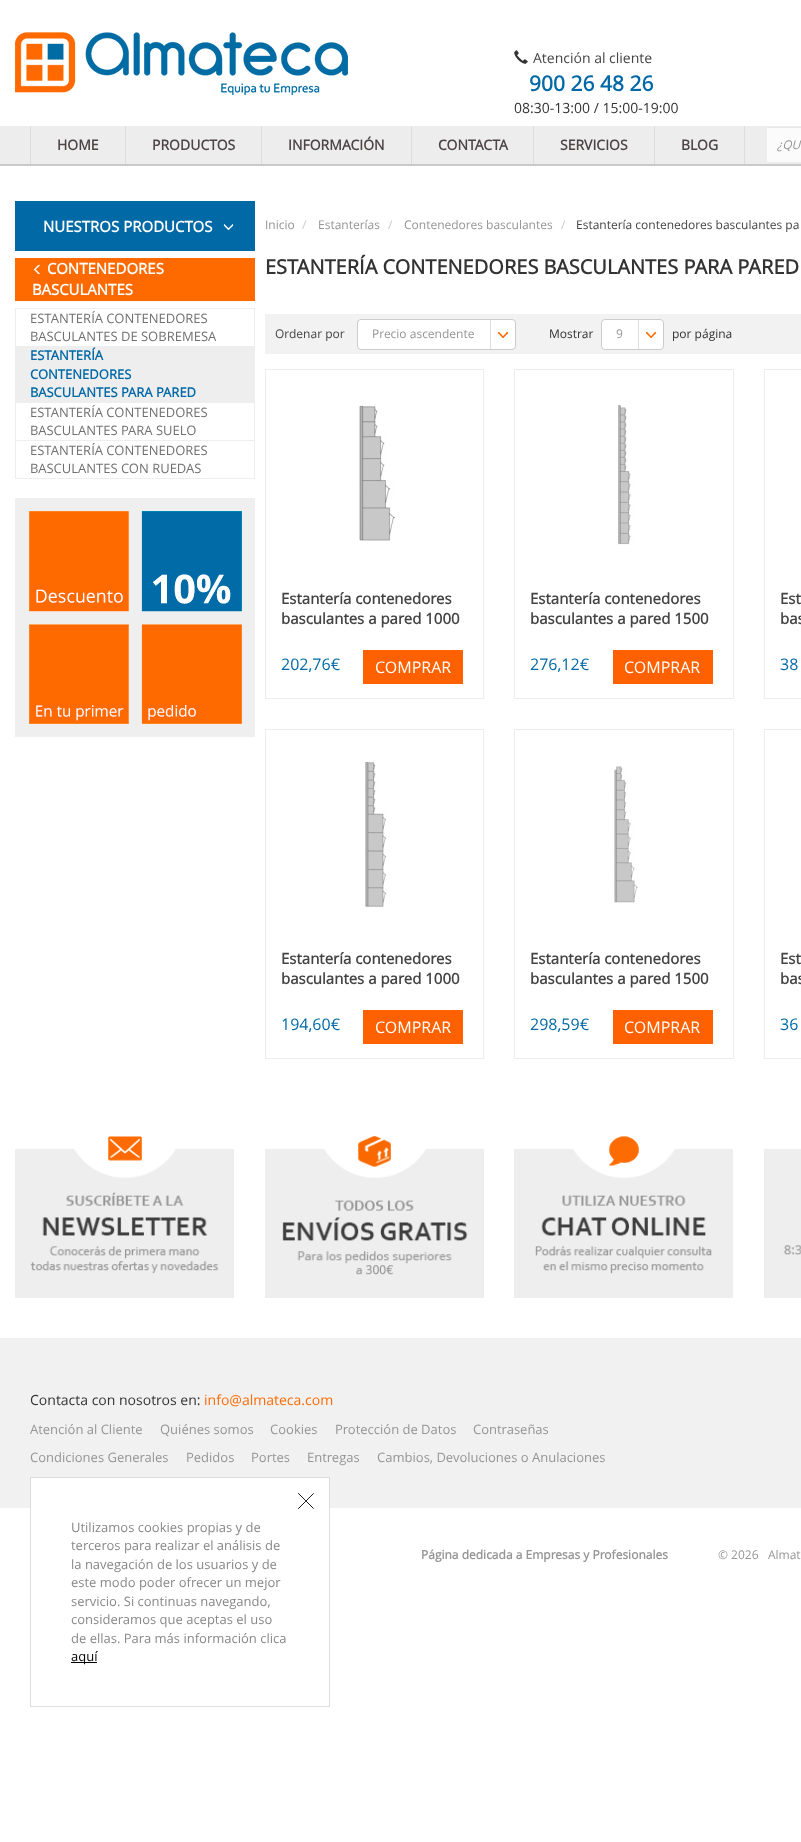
<!DOCTYPE html>
<meta charset="utf-8">
<style>body { margin: 0 } canvas { display: block }</style>
<canvas id="canvas" width="801" height="1842"></canvas>
<img id="img1" src="img_01.png" hidden>
<img id="img2" src="img_02.png" hidden>
<img id="img3" src="img_03.png" hidden>
<img id="img4" src="img_04.png" hidden>
<img id="img5" src="img_05.png" hidden>
<img id="img6" src="img_06.png" hidden>
<img id="img7" src="img_07.png" hidden>
<img id="img8" src="img_08.png" hidden>
<img id="img9" src="img_09.png" hidden>
<img id="img10" src="img_10.png" hidden>
<img id="img11" src="img_11.png" hidden>
<img id="img12" src="img_12.png" hidden>
<img id="img13" src="img_13.png" hidden>
<img id="img14" src="img_14.png" hidden>
<img id="img15" src="img_15.png" hidden>
<script>
window.onload = function () {
	const canvas = document.getElementById("canvas");
	const ctx = canvas.getContext("2d");
	ctx.miterLimit = 4;
	ctx.fontKerning = "normal";
	function txt(s, x, y) {
		ctx.fillText(s, x, y);
	}
	function fill(x, y, w, h) {
		ctx.fillRect(x, y, w, h);
	}
	function img(id, x, y, w, h) {
		ctx.drawImage(document.getElementById(id), x, y, w, h);
	}

	ctx.fillStyle = "#FFFFFF";
	fill(0, 0, 801, 1842);
	img("img1", 15, 32, 333, 63);
	img("img2", 514, 50, 14, 14);
	ctx.fillStyle = "#EDEDED";
	fill(0, 126, 30, 38);
	ctx.fillStyle = "#CACACA";
	fill(0, 164, 801, 2);
	ctx.fillStyle = "#EDEDED";
	fill(31, 126, 770, 38);
	ctx.fillStyle = "#DCDCDC";
	fill(744, 126, 1, 38);
	fill(30, 126, 1, 38);
	fill(125, 126, 1, 38);
	fill(261, 126, 1, 38);
	fill(411, 126, 1, 38);
	fill(533, 126, 1, 38);
	fill(654, 126, 1, 38);
	ctx.fillStyle = "#FBFBFB";
	fill(767, 128, 34, 34);
	ctx.fillStyle = "#E8E8E8";
	fill(767, 127, 34, 1);
	ctx.fillStyle = "#0069A6";
	fill(15, 201, 240, 50);
	img("img3", 223, 224, 11, 7);
	ctx.fillStyle = "#FF6A00";
	fill(15, 258, 240, 43);
	img("img4", 33, 264, 7, 11);
	ctx.strokeStyle = "#EEEEEE";
	ctx.strokeRect(15.5, 308.5, 239, 38);
	ctx.fillStyle = "#EEEEEE";
	fill(15, 347, 240, 55);
	ctx.strokeRect(15.5, 402.5, 239, 38);
	ctx.strokeRect(15.5, 440.5, 239, 38);
	img("img5", 15, 498, 240, 239);
	ctx.fillStyle = "#F2F2F2";
	fill(265, 314, 536, 40);
	ctx.fillStyle = "#FFFFFF";
	ctx.beginPath();
	ctx.roundRect(357.5, 319.5, 158, 30, 3.5);
	ctx.fill();
	ctx.strokeStyle = "#CCCCCC";
	ctx.stroke();
	img("img6", 498, 332, 10, 6);
	ctx.fillStyle = "#DEDEDE";
	fill(490, 320, 1, 29);
	ctx.fillStyle = "#FFFFFF";
	ctx.beginPath();
	ctx.roundRect(601.5, 319.5, 62, 30, 3.5);
	ctx.fill();
	ctx.stroke();
	img("img6", 646, 332, 10, 6);
	ctx.fillStyle = "#DEDEDE";
	fill(638, 320, 1, 29);
	ctx.strokeStyle = "#EDEDED";
	ctx.strokeRect(265.5, 369.5, 218, 329);
	img("img7", 359, 405, 36, 136);
	ctx.fillStyle = "#FF6100";
	fill(363, 650, 100, 34);
	ctx.strokeRect(514.5, 369.5, 219, 329);
	img("img8", 618, 404, 16, 141);
	fill(613, 650, 100, 34);
	ctx.strokeRect(764.5, 369.5, 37, 329);
	ctx.strokeRect(265.5, 729.5, 218, 329);
	img("img9", 364, 761, 23, 146);
	fill(363, 1010, 100, 34);
	ctx.strokeRect(514.5, 729.5, 219, 329);
	img("img10", 614, 766, 24, 137);
	fill(613, 1010, 100, 34);
	ctx.strokeRect(764.5, 729.5, 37, 329);
	img("img11", 15, 1136, 219, 162);
	img("img12", 265, 1136, 219, 162);
	img("img13", 514, 1136, 219, 162);
	img("img14", 764, 1149, 37, 149);
	ctx.fillStyle = "#F1F1F1";
	fill(0, 1338, 801, 170);
	ctx.fillStyle = "#FFFFFF";
	fill(31, 1478, 298, 30);
	ctx.strokeStyle = "#DDDDDD";
	ctx.strokeRect(30.5, 1477.5, 299, 229);
	img("img15", 298, 1493, 16, 16);
	ctx.fillStyle = "#000000";
	fill(71, 1662, 26, 1);
	ctx.font = "14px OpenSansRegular";
	ctx.fillStyle = "#444444";
	txt("Atención al cliente", 533, 63);
	ctx.font = "bold 21px OpenSansRegular";
	ctx.fillStyle = "#0069A6";
	txt("900 26 48 26", 529, 91);
	ctx.font = "14px OpenSansRegular";
	ctx.fillStyle = "#333333";
	txt("08:30-13:00 / 15:00-19:00", 514, 113);
	ctx.font = "bold 14px OpenSansRegular";
	ctx.fillStyle = "#4C4445";
	txt("HOME", 57, 150);
	txt("PRODUCTOS", 152, 150);
	txt("INFORMACIÓN", 288, 150);
	txt("CONTACTA", 438, 150);
	txt("SERVICIOS", 560, 150);
	txt("BLOG", 681, 150);
	ctx.font = "italic 12px OpenSansRegular";
	ctx.fillStyle = "#959595";
	txt("¿QU", 777, 149);
	ctx.font = "bold 15px OpenSansRegular";
	ctx.fillStyle = "#FFFFFF";
	txt("NUESTROS PRODUCTOS", 43, 232);
	txt("CONTENEDORES", 47, 274);
	txt("BASCULANTES", 32, 295);
	ctx.font = "13px OpenSansRegular";
	ctx.fillStyle = "#707070";
	txt("ESTANTERÍA CONTENEDORES", 30, 323);
	txt("BASCULANTES DE SOBREMESA", 30, 341);
	ctx.font = "bold 13px OpenSansRegular";
	ctx.fillStyle = "#0069A6";
	txt("ESTANTERÍA", 30, 360);
	txt("CONTENEDORES", 30, 379);
	txt("BASCULANTES PARA PARED", 30, 397);
	ctx.font = "13px OpenSansRegular";
	ctx.fillStyle = "#707070";
	txt("ESTANTERÍA CONTENEDORES", 30, 417);
	txt("BASCULANTES PARA SUELO", 30, 435);
	txt("ESTANTERÍA CONTENEDORES", 30, 455);
	txt("BASCULANTES CON RUEDAS", 30, 473);
	ctx.font = "12px OpenSansRegular";
	ctx.fillStyle = "#959595";
	txt("Inicio", 265, 229);
	ctx.fillStyle = "#CCCCCC";
	txt("/", 302, 229);
	ctx.fillStyle = "#959595";
	txt("Estanterías", 318, 229);
	ctx.fillStyle = "#CCCCCC";
	txt("/", 388, 229);
	ctx.fillStyle = "#959595";
	txt("Contenedores basculantes", 404, 229);
	ctx.fillStyle = "#CCCCCC";
	txt("/", 561, 229);
	ctx.fillStyle = "#444444";
	txt("Estantería contenedores basculantes pa", 576, 229);
	ctx.font = "bold 20px OpenSansRegular";
	ctx.fillStyle = "#333333";
	txt("ESTANTERÍA CONTENEDORES BASCULANTES PARA PARED", 265, 274);
	ctx.font = "12px OpenSansRegular";
	ctx.fillStyle = "#444444";
	txt("Ordenar por", 275, 338);
	ctx.fillStyle = "#959595";
	txt("Precio ascendente", 372, 338);
	ctx.fillStyle = "#333333";
	txt("Mostrar", 549, 338);
	ctx.fillStyle = "#959595";
	txt("9", 616, 338);
	ctx.fillStyle = "#333333";
	txt("por página", 672, 338);
	ctx.font = "bold 15px OpenSansRegular";
	ctx.fillStyle = "#444444";
	txt("Estantería contenedores", 281, 604);
	txt("basculantes a pared 1000", 281, 624);
	ctx.font = "16px OpenSansRegular";
	ctx.fillStyle = "#0069A6";
	txt("202,76€", 281, 670);
	ctx.fillStyle = "#FFFFFF";
	txt("COMPRAR", 375, 673);
	ctx.font = "bold 15px OpenSansRegular";
	ctx.fillStyle = "#444444";
	txt("Estantería contenedores", 530, 604);
	txt("basculantes a pared 1500", 530, 624);
	ctx.font = "16px OpenSansRegular";
	ctx.fillStyle = "#0069A6";
	txt("276,12€", 530, 670);
	ctx.fillStyle = "#FFFFFF";
	txt("COMPRAR", 624, 673);
	ctx.font = "bold 15px OpenSansRegular";
	ctx.fillStyle = "#444444";
	txt("Est", 780, 604);
	txt("bas", 780, 624);
	ctx.font = "16px OpenSansRegular";
	ctx.fillStyle = "#0069A6";
	txt("38", 780, 670);
	ctx.font = "bold 15px OpenSansRegular";
	ctx.fillStyle = "#444444";
	txt("Estantería contenedores", 281, 964);
	txt("basculantes a pared 1000", 281, 984);
	ctx.font = "16px OpenSansRegular";
	ctx.fillStyle = "#0069A6";
	txt("194,60€", 281, 1030);
	ctx.fillStyle = "#FFFFFF";
	txt("COMPRAR", 375, 1033);
	ctx.font = "bold 15px OpenSansRegular";
	ctx.fillStyle = "#444444";
	txt("Estantería contenedores", 530, 964);
	txt("basculantes a pared 1500", 530, 984);
	ctx.font = "16px OpenSansRegular";
	ctx.fillStyle = "#0069A6";
	txt("298,59€", 530, 1030);
	ctx.fillStyle = "#FFFFFF";
	txt("COMPRAR", 624, 1033);
	ctx.font = "bold 15px OpenSansRegular";
	ctx.fillStyle = "#444444";
	txt("Est", 780, 964);
	txt("bas", 780, 984);
	ctx.font = "16px OpenSansRegular";
	ctx.fillStyle = "#0069A6";
	txt("36", 780, 1030);
	ctx.font = "14px OpenSansRegular";
	ctx.fillStyle = "#333333";
	txt("Contacta con nosotros en:", 30, 1405);
	ctx.fillStyle = "#FC6C05";
	txt("info@almateca.com", 204, 1405);
	ctx.font = "13px OpenSansRegular";
	ctx.fillStyle = "#959595";
	txt("Atención al Cliente", 30, 1434);
	txt("Quiénes somos", 160, 1434);
	txt("Cookies", 270, 1434);
	txt("Protección de Datos", 335, 1434);
	txt("Contraseñas", 473, 1434);
	txt("Condiciones Generales", 30, 1462);
	txt("Pedidos", 186, 1462);
	txt("Portes", 251, 1462);
	txt("Entregas", 307, 1462);
	txt("Cambios, Devoluciones o Anulaciones", 377, 1462);
	ctx.font = "bold 12px OpenSansRegular";
	txt("Página dedicada a Empresas y Profesionales", 421, 1559);
	ctx.font = "12px OpenSansRegular";
	txt("© 2026   Almat", 718, 1559);
	ctx.font = "13px OpenSansRegular";
	ctx.fillStyle = "#888888";
	txt("Utilizamos cookies propias y de", 71, 1532);
	txt("terceros para realizar el análisis de", 71, 1550);
	txt("la navegación de los usuarios y de", 71, 1569);
	txt("este modo poder ofrecer un mejor", 71, 1587);
	txt("servicio. Si continuas navegando,", 71, 1606);
	txt("consideramos que aceptas el uso", 71, 1624);
	txt("de ellas. Para más información clica", 71, 1643);
	ctx.fillStyle = "#000000";
	txt("aquí", 71, 1661);
};
</script>
